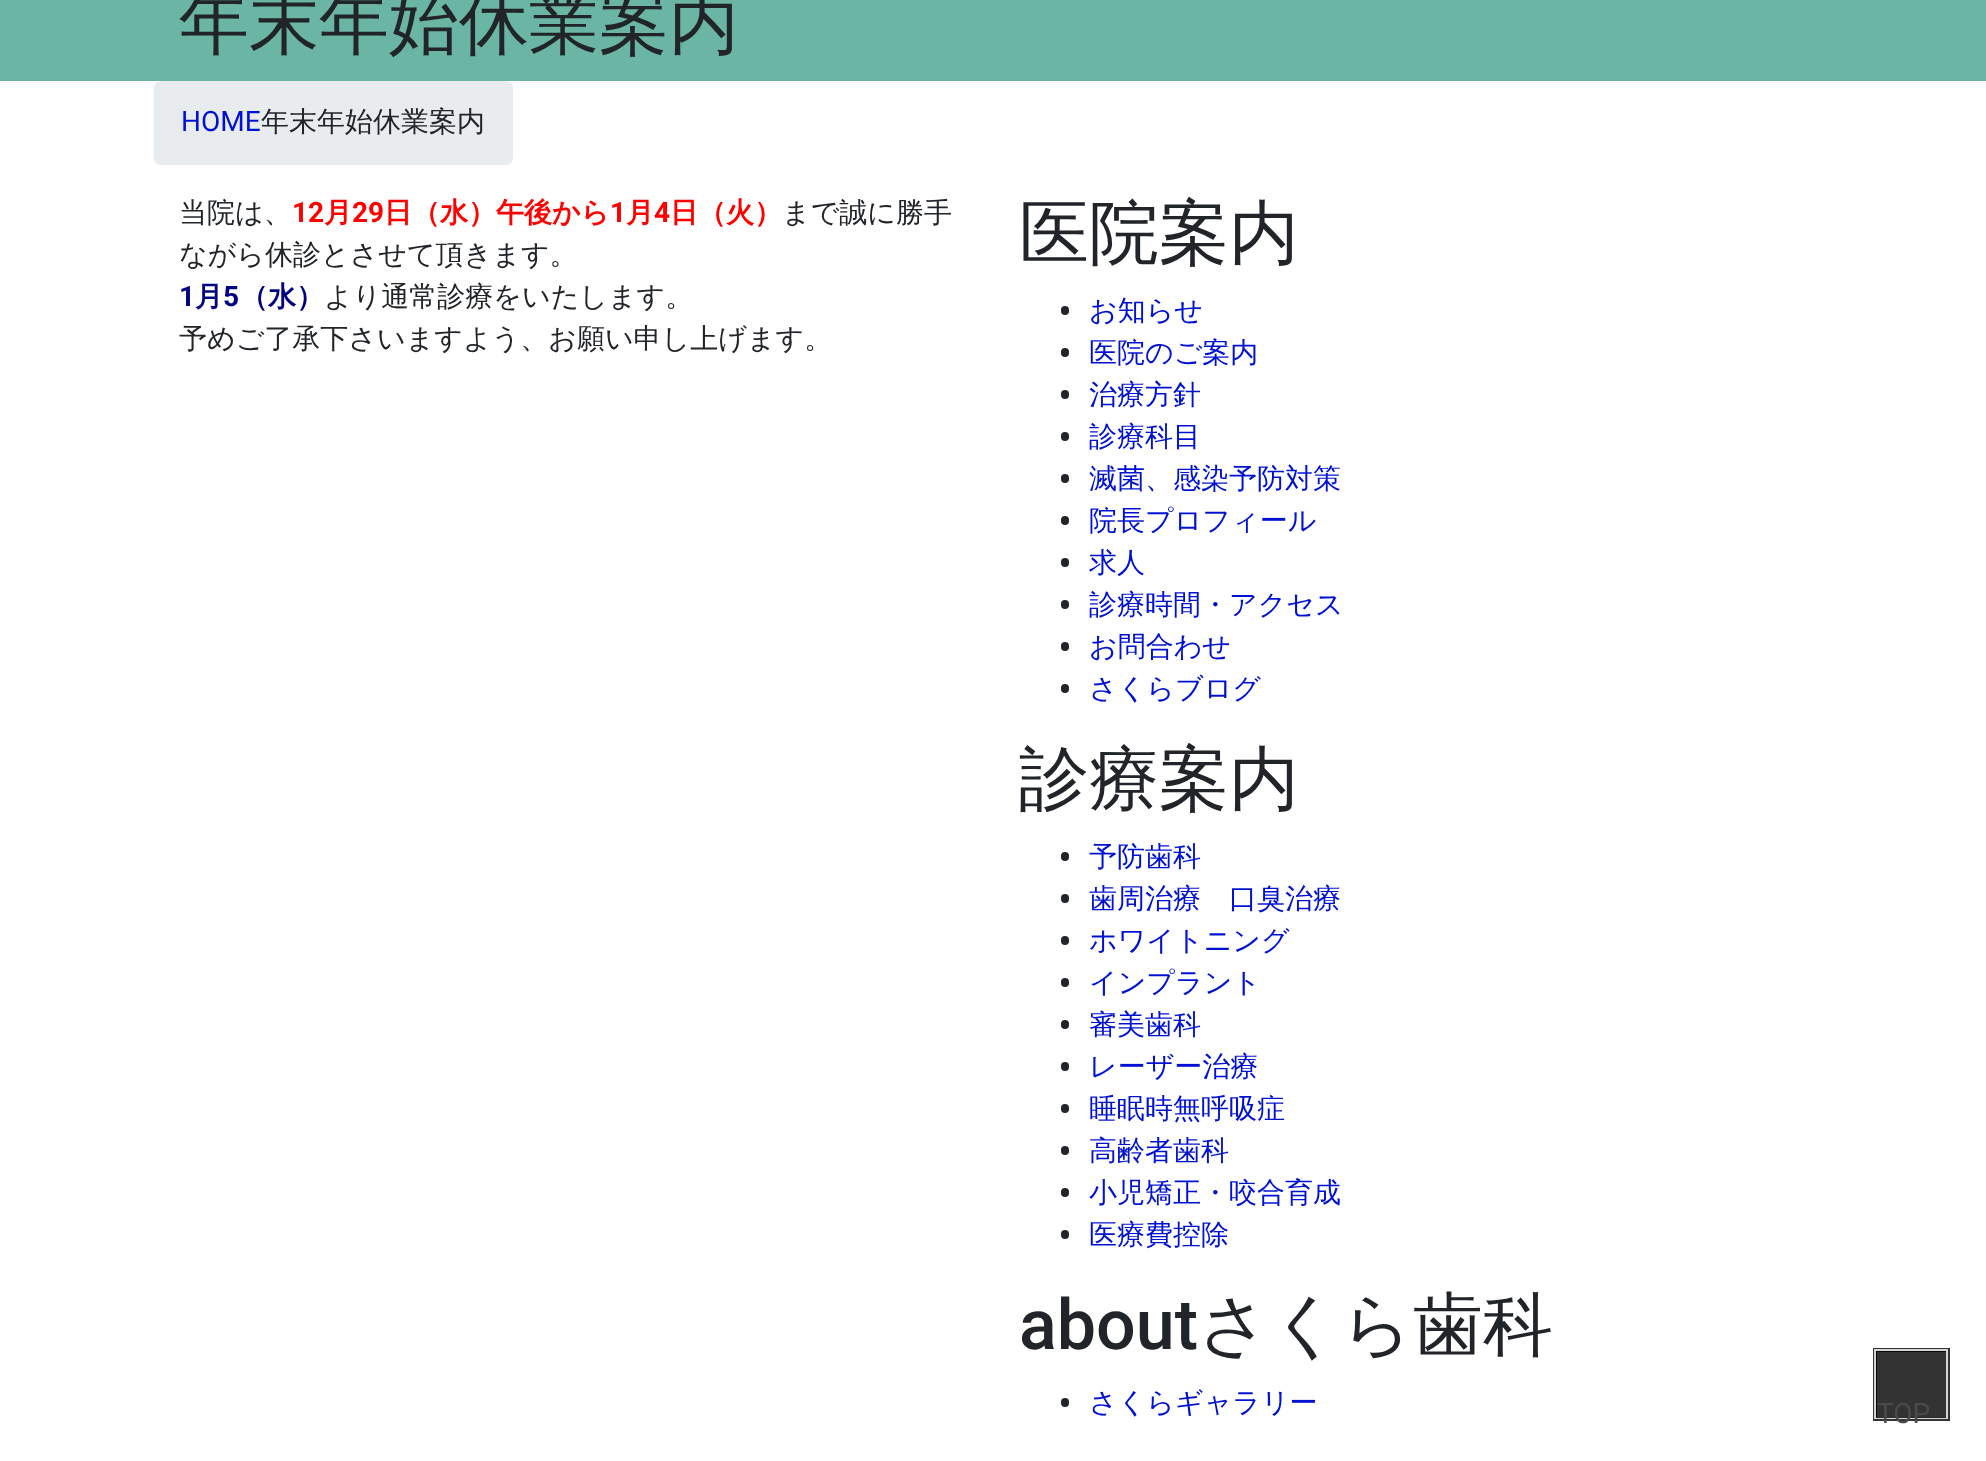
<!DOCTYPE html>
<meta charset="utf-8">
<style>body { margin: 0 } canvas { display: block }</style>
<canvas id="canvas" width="1986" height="1461"></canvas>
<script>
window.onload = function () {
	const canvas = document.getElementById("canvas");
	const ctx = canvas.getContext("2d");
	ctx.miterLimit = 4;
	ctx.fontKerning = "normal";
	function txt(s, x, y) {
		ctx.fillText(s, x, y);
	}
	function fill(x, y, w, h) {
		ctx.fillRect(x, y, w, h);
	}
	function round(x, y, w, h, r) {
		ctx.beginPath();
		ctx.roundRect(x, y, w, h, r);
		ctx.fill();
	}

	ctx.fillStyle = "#FFFFFF";
	fill(0, 0, 1986, 1461);
	ctx.fillStyle = "#6BB5A5";
	fill(0, 0, 1986, 81);
	ctx.fillStyle = "#E9ECEF";
	round(154, 81, 359, 84, 7);
	ctx.fillStyle = "#212529";
	round(1061, 306, 8, 9, 4);
	round(1061, 348, 8, 9, 4);
	round(1061, 390, 8, 9, 4);
	round(1061, 432, 8, 9, 4);
	round(1061, 474, 8, 9, 4);
	round(1061, 516, 8, 9, 4);
	round(1061, 558, 8, 9, 4);
	round(1061, 600, 8, 9, 4);
	round(1061, 642, 8, 9, 4);
	round(1061, 684, 8, 9, 4);
	round(1061, 852, 8, 9, 4);
	round(1061, 894, 8, 9, 4);
	round(1061, 936, 8, 9, 4);
	round(1061, 978, 8, 9, 4);
	round(1061, 1020, 8, 9, 4);
	round(1061, 1062, 8, 9, 4);
	round(1061, 1104, 8, 9, 4);
	round(1061, 1146, 8, 9, 4);
	round(1061, 1188, 8, 9, 4);
	round(1061, 1230, 8, 9, 4);
	round(1061, 1398, 8, 9, 4);
	ctx.strokeStyle = "#333333";
	ctx.lineWidth = 4;
	ctx.strokeRect(1875, 1350, 73, 69);
	ctx.strokeStyle = "#D6D6D6";
	ctx.lineWidth = 2;
	ctx.strokeRect(1875, 1350, 72, 68);
	ctx.fillStyle = "rgba(0, 0, 0, 0.8)";
	fill(1876, 1351, 70, 67);
	ctx.font = "500 70px WenQuanYi Zen Hei";
	ctx.fillStyle = "#212529";
	txt("年末年始休業案内", 179, 47);
	ctx.font = "28px Roboto";
	ctx.fillStyle = "#0011D1";
	txt("HOME", 181, 131);
	ctx.font = "500 28px WenQuanYi Zen Hei";
	ctx.fillStyle = "#212529";
	txt("年末年始休業案内", 261, 131);
	txt("当院は、", 179, 222);
	ctx.font = "bold 28px Roboto";
	ctx.fillStyle = "#FF0000";
	txt("12", 292, 222);
	ctx.font = "bold 28px WenQuanYi Zen Hei";
	txt("月", 324, 222);
	ctx.font = "bold 28px Roboto";
	txt("29", 352, 222);
	ctx.font = "bold 28px WenQuanYi Zen Hei";
	txt("日（水）午後から", 384, 222);
	ctx.font = "bold 28px Roboto";
	txt("1", 610, 222);
	ctx.font = "bold 28px WenQuanYi Zen Hei";
	txt("月", 626, 222);
	ctx.font = "bold 28px Roboto";
	txt("4", 654, 222);
	ctx.font = "bold 28px WenQuanYi Zen Hei";
	txt("日（火）", 670, 222);
	ctx.font = "500 28px WenQuanYi Zen Hei";
	ctx.fillStyle = "#212529";
	txt("まで誠に勝手", 782, 222);
	txt("ながら休診とさせて頂きます。", 179, 264);
	ctx.font = "bold 28px Roboto";
	ctx.fillStyle = "#000080";
	txt("1", 179, 306);
	ctx.font = "bold 28px WenQuanYi Zen Hei";
	txt("月", 195, 306);
	ctx.font = "bold 28px Roboto";
	txt("5", 223, 306);
	ctx.font = "bold 28px WenQuanYi Zen Hei";
	txt("（水）", 240, 306);
	ctx.font = "500 28px WenQuanYi Zen Hei";
	ctx.fillStyle = "#212529";
	txt("より通常診療をいたします。", 324, 306);
	txt("予めご了承下さいますよう、お願い申し上げます。", 179, 348);
	ctx.font = "500 70px WenQuanYi Zen Hei";
	txt("医院案内", 1019, 257);
	ctx.font = "500 28px WenQuanYi Zen Hei";
	ctx.fillStyle = "#0011D1";
	txt("お知らせ", 1089, 320);
	txt("医院のご案内", 1089, 362);
	txt("治療方針", 1089, 404);
	txt("診療科目", 1089, 446);
	txt("滅菌、感染予防対策", 1089, 488);
	txt("院長プロフィール", 1089, 530);
	txt("求人", 1089, 572);
	txt("診療時間・アクセス", 1089, 614);
	txt("お問合わせ", 1089, 656);
	txt("さくらブログ", 1089, 698);
	ctx.font = "500 70px WenQuanYi Zen Hei";
	ctx.fillStyle = "#212529";
	txt("診療案内", 1019, 803);
	ctx.font = "500 28px WenQuanYi Zen Hei";
	ctx.fillStyle = "#0011D1";
	txt("予防歯科", 1089, 866);
	txt("歯周治療　口臭治療", 1089, 908);
	txt("ホワイトニング", 1089, 950);
	txt("インプラント", 1089, 992);
	txt("審美歯科", 1089, 1034);
	txt("レーザー治療", 1089, 1076);
	txt("睡眠時無呼吸症", 1089, 1118);
	txt("高齢者歯科", 1089, 1160);
	txt("小児矯正・咬合育成", 1089, 1202);
	txt("医療費控除", 1089, 1244);
	ctx.font = "500 70px Roboto";
	ctx.fillStyle = "#212529";
	txt("about", 1019, 1349);
	ctx.font = "500 70px WenQuanYi Zen Hei";
	txt("さくら歯科", 1198, 1349);
	ctx.font = "500 28px WenQuanYi Zen Hei";
	ctx.fillStyle = "#0011D1";
	txt("さくらギャラリー", 1089, 1412);
	ctx.font = "28px Roboto";
	ctx.fillStyle = "#4A4A4A";
	txt("TOP", 1877, 1423);
};
</script>
